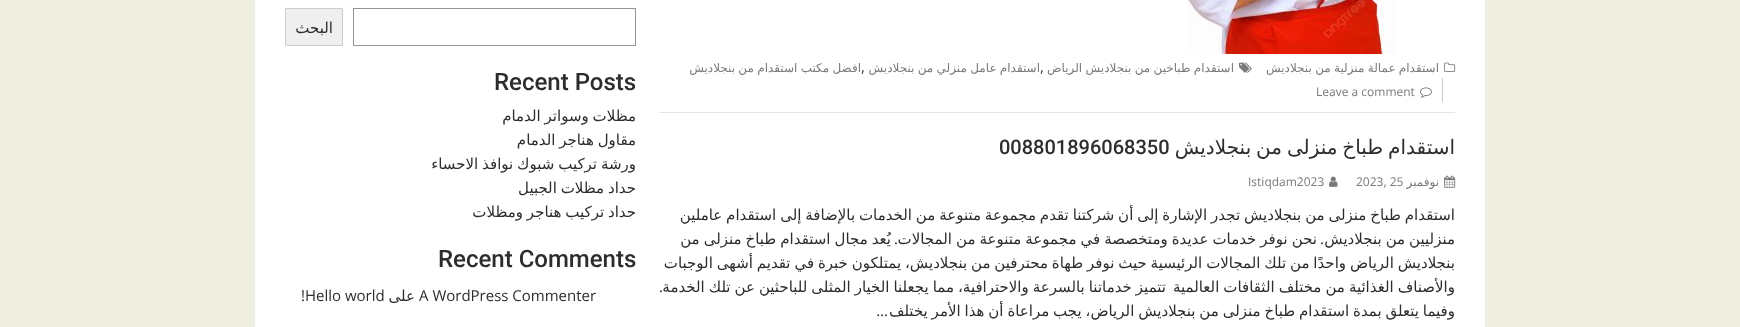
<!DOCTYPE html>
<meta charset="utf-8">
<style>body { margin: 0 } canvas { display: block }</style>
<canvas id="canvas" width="1740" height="327"></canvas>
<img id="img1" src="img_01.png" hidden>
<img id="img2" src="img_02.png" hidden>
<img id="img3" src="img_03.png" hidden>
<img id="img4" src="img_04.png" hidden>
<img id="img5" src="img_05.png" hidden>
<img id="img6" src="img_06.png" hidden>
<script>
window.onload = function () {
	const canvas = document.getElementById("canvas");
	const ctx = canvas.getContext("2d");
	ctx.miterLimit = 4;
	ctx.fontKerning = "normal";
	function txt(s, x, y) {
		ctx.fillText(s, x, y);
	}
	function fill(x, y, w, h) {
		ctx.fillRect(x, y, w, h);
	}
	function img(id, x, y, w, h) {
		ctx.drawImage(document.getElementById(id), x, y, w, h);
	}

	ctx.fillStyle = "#EEEEE1";
	fill(0, 0, 1740, 327);
	ctx.fillStyle = "#FFFFFF";
	fill(255, 0, 1230, 327);
	ctx.fillStyle = "#E5E5E5";
	fill(659, 112, 796, 1);
	img("img1", 1187, 0, 208, 54);
	img("img2", 1444, 62, 12, 10);
	img("img3", 1239, 62, 13, 11);
	ctx.fillStyle = "#CCCCCC";
	fill(1442, 78, 1, 24);
	img("img4", 1420, 87, 12, 11);
	img("img5", 1444, 175, 12, 13);
	img("img6", 1329, 176, 9, 11);
	ctx.strokeStyle = "#949494";
	ctx.strokeRect(353.5, 8.5, 282, 37);
	ctx.fillStyle = "#EFEFEF";
	ctx.beginPath();
	ctx.rect(285.5, 8.5, 57, 37);
	ctx.fill();
	ctx.strokeStyle = "#CCCCCC";
	ctx.stroke();
	ctx.wordSpacing = "-0.5px";
	ctx.direction = "rtl";
	ctx.font = "12px DejaVu Sans";
	ctx.fillStyle = "#7A7A7A";
	txt("استقدام عمالة منزلية من بنجلاديش", 1439, 72);
	txt("استقدام طباخين من بنجلاديش الرياض", 1234, 72);
	ctx.wordSpacing = "0px";
	ctx.direction = "ltr";
	ctx.font = "15px Open Sans";
	ctx.fillStyle = "#2D2D2D";
	txt(",", 1040, 72);
	ctx.wordSpacing = "-0.5px";
	ctx.direction = "rtl";
	ctx.font = "12px DejaVu Sans";
	ctx.fillStyle = "#7A7A7A";
	txt("استقدام عامل منزلي من بنجلاديش", 1040, 72);
	ctx.wordSpacing = "0px";
	ctx.direction = "ltr";
	ctx.font = "15px Open Sans";
	ctx.fillStyle = "#2D2D2D";
	txt(",", 861, 72);
	ctx.wordSpacing = "-0.5px";
	ctx.direction = "rtl";
	ctx.font = "12px DejaVu Sans";
	ctx.fillStyle = "#7A7A7A";
	txt("افضل مكتب استقدام من بنجلاديش", 861, 72);
	ctx.wordSpacing = "0px";
	ctx.direction = "ltr";
	ctx.font = "12px Open Sans";
	txt("Leave a comment", 1316, 96);
	ctx.wordSpacing = "-1.5px";
	ctx.direction = "rtl";
	ctx.font = "20px DejaVu Sans";
	ctx.fillStyle = "#2D2D2D";
	txt("استقدام طباخ منزلى من بنجلاديش", 1455, 154);
	ctx.wordSpacing = "0px";
	ctx.direction = "ltr";
	ctx.font = "500 20px Roboto";
	txt("008801896068350", 999, 154);
	ctx.direction = "rtl";
	ctx.font = "12px DejaVu Sans";
	ctx.fillStyle = "#7A7A7A";
	txt("نوفمبر", 1439, 186);
	ctx.direction = "ltr";
	ctx.font = "12px Open Sans";
	txt("2023, 25", 1356, 186);
	txt("Istiqdam2023", 1248, 186);
	ctx.wordSpacing = "-0.9px";
	ctx.direction = "rtl";
	ctx.font = "15px DejaVu Sans";
	ctx.fillStyle = "#2D2D2D";
	txt("استقدام طباخ منزلى من بنجلاديش تجدر الإشارة إلى أن شركتنا تقدم مجموعة متنوعة من الخدمات بالإضافة إلى استقدام عاملين", 1455, 220);
	ctx.wordSpacing = "-0.75px";
	txt("منزليين من بنجلاديش", 1455, 244);
	txt("نحن نوفر خدمات عديدة ومتخصصة في مجموعة متنوعة من المجالات", 1317, 244);
	txt("يُعد مجال استقدام طباخ منزلى من", 891, 244);
	ctx.wordSpacing = "0px";
	ctx.font = "15px Open Sans";
	txt(".", 898, 244);
	txt(".", 1324, 244);
	ctx.wordSpacing = "-0.9px";
	ctx.font = "15px DejaVu Sans";
	txt("بنجلاديش الرياض واحدًا من تلك المجالات الرئيسية حيث نوفر طهاة محترفين من بنجلاديش، يمتلكون خبرة في تقديم أشهى الوجبات", 1455, 268);
	ctx.wordSpacing = "-0.75px";
	txt("والأصناف الغذائية من مختلف الثقافات العالمية", 1455, 292);
	txt("تتميز خدماتنا بالسرعة والاحترافية، مما يجعلنا الخيار المثلى للباحثين عن تلك الخدمة", 1166, 292);
	ctx.wordSpacing = "0px";
	ctx.font = "15px Open Sans";
	txt(".", 663, 292);
	ctx.wordSpacing = "-0.9px";
	ctx.font = "15px DejaVu Sans";
	txt("وفيما يتعلق بمدة استقدام طباخ منزلى من بنجلاديش الرياض، يجب مراعاة أن هذا الأمر يختلف", 1455, 316);
	ctx.wordSpacing = "0px";
	ctx.font = "15px Open Sans";
	txt("…", 888, 316);
	ctx.font = "15px DejaVu Sans";
	txt("البحث", 333, 33);
	ctx.direction = "ltr";
	ctx.font = "500 24px Roboto";
	txt("Recent Posts", 494, 90);
	ctx.wordSpacing = "-0.9px";
	ctx.direction = "rtl";
	ctx.font = "15px DejaVu Sans";
	txt("مظلات وسواتر الدمام", 636, 121);
	txt("مقاول هناجر الدمام", 636, 145);
	txt("ورشة تركيب شبوك نوافذ الاحساء", 636, 169);
	txt("حداد مظلات الجبيل", 636, 193);
	txt("حداد تركيب هناجر ومظلات", 636, 217);
	ctx.wordSpacing = "0px";
	ctx.direction = "ltr";
	ctx.font = "500 24px Roboto";
	txt("Recent Comments", 438, 267);
	ctx.font = "15px Open Sans";
	txt("A WordPress Commenter", 419, 301);
	ctx.direction = "rtl";
	ctx.font = "15px DejaVu Sans";
	txt("على", 415, 301);
	ctx.direction = "ltr";
	ctx.font = "15px Open Sans";
	txt("!Hello world", 301, 301);
};
</script>
